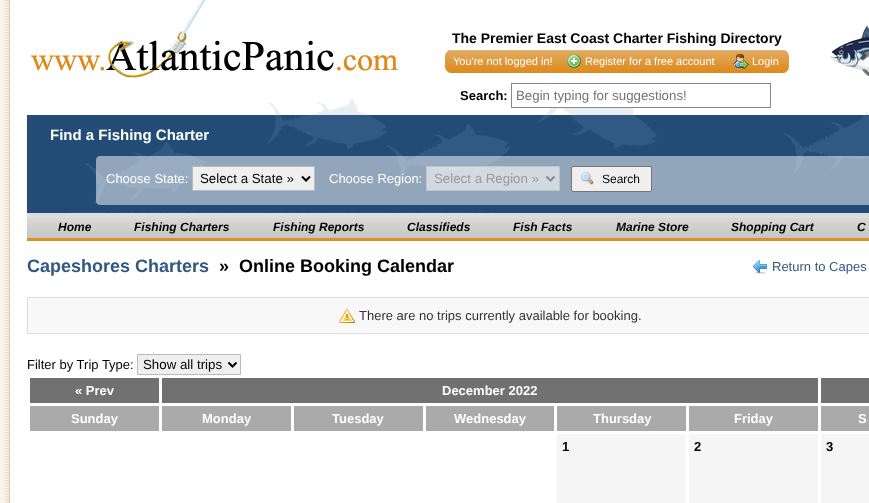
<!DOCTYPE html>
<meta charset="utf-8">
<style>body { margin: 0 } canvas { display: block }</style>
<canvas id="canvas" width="869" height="503"></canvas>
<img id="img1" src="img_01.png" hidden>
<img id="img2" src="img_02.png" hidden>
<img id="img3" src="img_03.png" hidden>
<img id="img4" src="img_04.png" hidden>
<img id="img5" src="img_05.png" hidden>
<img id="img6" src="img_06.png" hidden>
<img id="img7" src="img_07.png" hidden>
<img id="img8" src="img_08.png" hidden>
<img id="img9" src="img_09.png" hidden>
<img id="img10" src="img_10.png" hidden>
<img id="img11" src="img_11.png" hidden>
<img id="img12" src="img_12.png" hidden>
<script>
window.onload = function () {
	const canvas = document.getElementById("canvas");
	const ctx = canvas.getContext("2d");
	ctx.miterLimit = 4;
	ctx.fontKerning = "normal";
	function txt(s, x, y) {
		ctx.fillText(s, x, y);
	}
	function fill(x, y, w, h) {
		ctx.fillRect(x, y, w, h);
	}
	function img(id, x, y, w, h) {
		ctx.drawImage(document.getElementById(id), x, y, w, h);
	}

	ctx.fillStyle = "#F9F5F2";
	fill(0, 0, 869, 503);
	img("img1", 1, 0, 868, 503);
	img("img2", 31, 0, 367, 78);
	img("img3", 445, 50, 344, 23);
	img("img4", 567, 54, 14, 14);
	img("img5", 733, 54, 16, 15);
	img("img6", 830, 25, 39, 51);
	img("img7", 27, 82, 842, 131);
	ctx.fillStyle = "#FFFFFF";
	fill(550, 84, 83, 23);
	ctx.strokeStyle = "#888888";
	ctx.strokeRect(511.5, 83.5, 259, 24);
	img("img8", 96, 156, 773, 49);
	ctx.fillStyle = "#EFEFEF";
	ctx.beginPath();
	ctx.rect(192.5, 166.5, 122, 24);
	ctx.fill();
	ctx.strokeStyle = "#BBBBBB";
	ctx.stroke();
	ctx.beginPath();
	ctx.moveTo(302, 176.5);
	ctx.lineTo(306, 180.5);
	ctx.lineTo(310, 176.5);
	ctx.strokeStyle = "#000000";
	ctx.lineWidth = 2;
	ctx.stroke();
	ctx.fillStyle = "rgba(239, 239, 239, 0.7)";
	ctx.beginPath();
	ctx.rect(426.5, 166.5, 133, 24);
	ctx.fill();
	ctx.strokeStyle = "#C2C4C6";
	ctx.lineWidth = 1;
	ctx.stroke();
	ctx.beginPath();
	ctx.moveTo(546.5, 176.5);
	ctx.lineTo(550.5, 180.5);
	ctx.lineTo(554.5, 176.5);
	ctx.strokeStyle = "#858B92";
	ctx.lineWidth = 2;
	ctx.stroke();
	ctx.fillStyle = "#EFEFEF";
	ctx.beginPath();
	ctx.roundRect(571.5, 166.5, 80, 25, 1.5);
	ctx.fill();
	ctx.strokeStyle = "#767676";
	ctx.lineWidth = 1;
	ctx.stroke();
	img("img9", 581, 172, 13, 13);
	ctx.fillStyle = "#DCDEDB";
	fill(27, 213, 842, 5);
	img("img10", 27, 218, 842, 23);
	img("img11", 753, 260, 14, 14);
	ctx.fillStyle = "#F8F8F8";
	ctx.beginPath();
	ctx.rect(27.5, 297.5, 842, 36);
	ctx.fill();
	ctx.strokeStyle = "#DDDDDD";
	ctx.stroke();
	img("img12", 339, 309, 16, 14);
	ctx.fillStyle = "#EFEFEF";
	ctx.beginPath();
	ctx.rect(137.5, 354.5, 103, 20);
	ctx.fill();
	ctx.strokeStyle = "#BBBBBB";
	ctx.stroke();
	ctx.beginPath();
	ctx.moveTo(228.5, 362.5);
	ctx.lineTo(232.5, 366.5);
	ctx.lineTo(236.5, 362.5);
	ctx.strokeStyle = "#000000";
	ctx.lineWidth = 2;
	ctx.stroke();
	ctx.fillStyle = "#717171";
	fill(30, 378, 129, 25);
	fill(162, 378, 656, 25);
	fill(821, 378, 48, 25);
	ctx.fillStyle = "#AAAAAA";
	fill(30, 406, 129, 25);
	fill(162, 406, 129, 25);
	fill(294, 406, 129, 25);
	fill(426, 406, 128, 25);
	fill(557, 406, 129, 25);
	fill(689, 406, 129, 25);
	fill(821, 406, 48, 25);
	ctx.fillStyle = "#F5F5F5";
	fill(557, 434, 129, 69);
	fill(689, 434, 129, 69);
	fill(821, 434, 48, 69);
	ctx.font = "bold 14px Liberation Sans";
	ctx.fillStyle = "#000000";
	txt("The Premier East Coast Charter Fishing Directory", 452, 43);
	ctx.font = "11px Liberation Sans";
	ctx.fillStyle = "#FFFFFF";
	txt("You're not logged in!", 453, 65);
	txt("Register for a free account", 585, 65);
	txt("Login", 752, 65);
	ctx.font = "bold 13px Liberation Sans";
	ctx.fillStyle = "#000000";
	txt("Search:", 460, 100);
	ctx.font = "13.3px Liberation Sans";
	ctx.fillStyle = "#757575";
	txt("Begin typing for suggestions!", 516, 100);
	ctx.font = "bold 15px Liberation Sans";
	ctx.fillStyle = "#FFFFFF";
	txt("Find a Fishing Charter", 50, 140);
	ctx.font = "13px Liberation Sans";
	txt("Choose State:", 106, 183);
	ctx.font = "13.3px Liberation Sans";
	ctx.fillStyle = "#000000";
	txt("Select a State »", 200, 183);
	ctx.font = "13px Liberation Sans";
	ctx.fillStyle = "#FFFFFF";
	txt("Choose Region:", 329, 183);
	ctx.font = "13.3px Liberation Sans";
	ctx.fillStyle = "#999B9D";
	txt("Select a Region »", 434, 183);
	ctx.font = "12px Liberation Sans";
	ctx.fillStyle = "#000000";
	txt("Search", 602, 183);
	ctx.font = "italic bold 12px Liberation Sans";
	txt("Home", 58, 231);
	txt("Fishing Charters", 134, 231);
	txt("Fishing Reports", 273, 231);
	txt("Classifieds", 407, 231);
	txt("Fish Facts", 513, 231);
	txt("Marine Store", 616, 231);
	txt("Shopping Cart", 731, 231);
	txt("C", 857, 231);
	ctx.font = "bold 18px Liberation Sans";
	ctx.fillStyle = "#31587F";
	txt("Capeshores Charters", 27, 272);
	ctx.fillStyle = "#000000";
	txt("»  Online Booking Calendar", 219, 272);
	ctx.font = "13px Liberation Sans";
	ctx.fillStyle = "#31587F";
	txt("Return to Capes", 772, 271);
	ctx.fillStyle = "#333333";
	txt("There are no trips currently available for booking.", 359, 320);
	ctx.fillStyle = "#000000";
	txt("Filter by Trip Type:", 27, 369);
	ctx.font = "13.3px Liberation Sans";
	txt("Show all trips", 143, 369);
	ctx.font = "bold 13px Liberation Sans";
	ctx.fillStyle = "#FFFFFF";
	txt("« Prev", 75, 395);
	txt("December 2022", 442, 395);
	txt("Sunday", 71, 423);
	txt("Monday", 202, 423);
	txt("Tuesday", 332, 423);
	txt("Wednesday", 454, 423);
	txt("Thursday", 593, 423);
	txt("Friday", 734, 423);
	txt("S", 858, 423);
	ctx.fillStyle = "#000000";
	txt("1", 562, 451);
	txt("2", 694, 451);
	txt("3", 826, 451);
};
</script>
